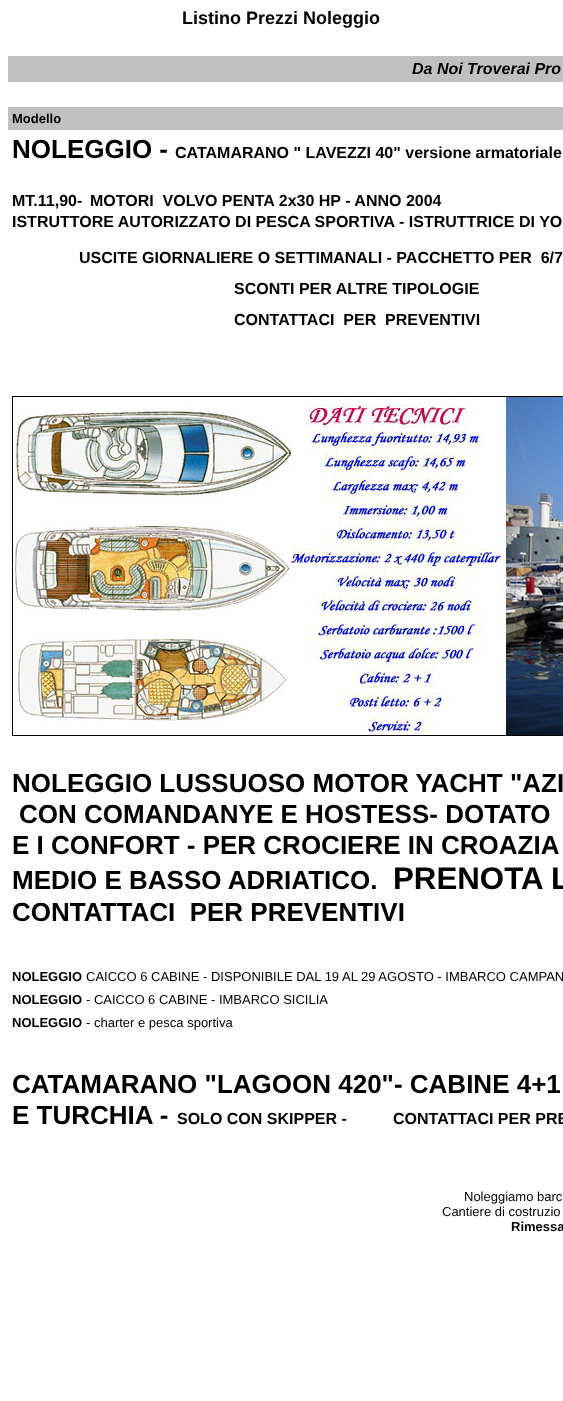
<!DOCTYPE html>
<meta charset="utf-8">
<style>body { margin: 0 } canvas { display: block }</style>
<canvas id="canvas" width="563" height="1401"></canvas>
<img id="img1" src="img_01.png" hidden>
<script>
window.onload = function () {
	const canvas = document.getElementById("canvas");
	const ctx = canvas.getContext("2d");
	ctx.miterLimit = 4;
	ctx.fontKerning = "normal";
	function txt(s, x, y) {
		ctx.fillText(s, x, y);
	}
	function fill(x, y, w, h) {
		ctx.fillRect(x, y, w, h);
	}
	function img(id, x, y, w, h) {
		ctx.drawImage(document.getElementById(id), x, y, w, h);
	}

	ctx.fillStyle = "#FFFFFF";
	fill(0, 0, 563, 1401);
	ctx.fillStyle = "#C0C0C0";
	fill(8, 56, 555, 26);
	fill(8, 107, 555, 23);
	img("img1", 12, 396, 551, 340);
	ctx.font = "bold 18px Liberation Sans";
	ctx.fillStyle = "#000000";
	txt("Listino Prezzi Noleggio", 182, 24);
	ctx.font = "italic bold 16px Liberation Sans";
	txt("Da Noi Troverai Pro", 412, 74);
	ctx.font = "bold 13px Liberation Sans";
	txt("Modello", 12, 123);
	ctx.font = "bold 26px Liberation Sans";
	txt("NOLEGGIO -", 12, 158);
	ctx.font = "bold 16px Liberation Sans";
	txt("CATAMARANO \" LAVEZZI 40\" versione armatoriale", 175, 158);
	txt("MT.11,90-", 12, 206);
	txt("MOTORI  VOLVO PENTA 2x30 HP - ANNO 2004", 90, 206);
	txt("ISTRUTTORE AUTORIZZATO DI PESCA SPORTIVA - ISTRUTTRICE DI YO", 12, 227);
	txt("USCITE GIORNALIERE O SETTIMANALI - PACCHETTO PER  6/7", 79, 263);
	txt("SCONTI PER ALTRE TIPOLOGIE", 234, 294);
	txt("CONTATTACI  PER  PREVENTIVI", 234, 325);
	ctx.font = "bold 26px Liberation Sans";
	txt("NOLEGGIO LUSSUOSO MOTOR YACHT \"AZI", 12, 792);
	txt("CON COMANDANYE E HOSTESS- DOTATO", 19, 823);
	txt("E I CONFORT - PER CROCIERE IN CROAZIA", 12, 854);
	txt("MEDIO E BASSO ADRIATICO.", 12, 889);
	ctx.font = "bold 31.25px Liberation Sans";
	txt("PRENOTA L", 393, 889);
	ctx.font = "bold 26px Liberation Sans";
	txt("CONTATTACI  PER PREVENTIVI", 12, 921);
	ctx.font = "bold 13px Liberation Sans";
	txt("NOLEGGIO", 12, 981);
	ctx.font = "13px Liberation Sans";
	txt("CAICCO 6 CABINE - DISPONIBILE DAL 19 AL 29 AGOSTO - IMBARCO CAMPAN", 86, 981);
	ctx.font = "bold 13px Liberation Sans";
	txt("NOLEGGIO", 12, 1004);
	ctx.font = "13px Liberation Sans";
	txt("- CAICCO 6 CABINE - IMBARCO SICILIA", 86, 1004);
	ctx.font = "bold 13px Liberation Sans";
	txt("NOLEGGIO", 12, 1027);
	ctx.font = "13px Liberation Sans";
	txt("- charter e pesca sportiva", 86, 1027);
	ctx.font = "bold 26px Liberation Sans";
	txt("CATAMARANO \"LAGOON 420\"- CABINE 4+1", 12, 1093);
	txt("E TURCHIA -", 12, 1124);
	ctx.font = "bold 16px Liberation Sans";
	txt("SOLO CON SKIPPER -", 177, 1124);
	txt("CONTATTACI PER PRE", 393, 1124);
	ctx.font = "13px Liberation Sans";
	txt("Noleggiamo barc", 464, 1201);
	txt("Cantiere di costruzio", 442, 1216);
	ctx.font = "bold 13px Liberation Sans";
	txt("Rimessa", 511, 1231);
};
</script>
